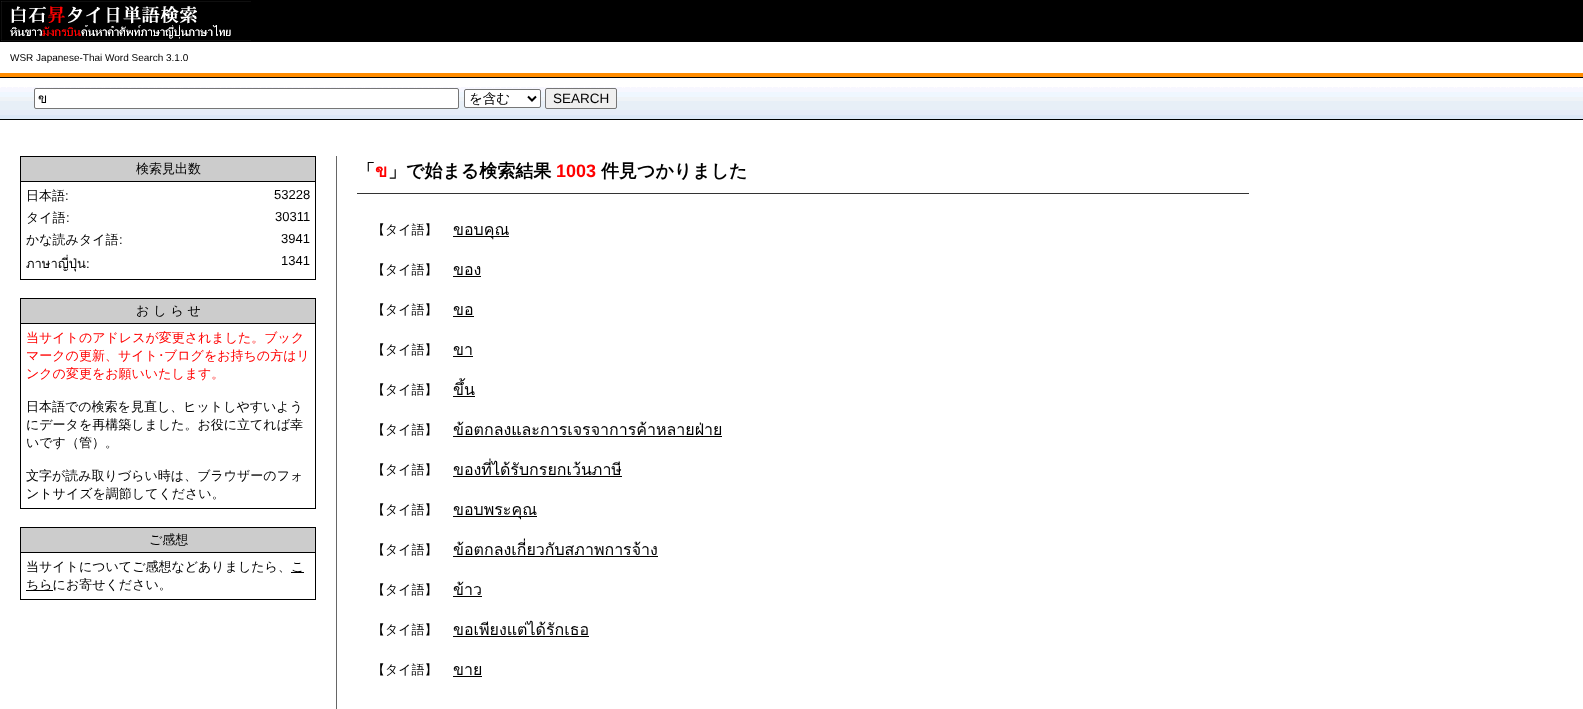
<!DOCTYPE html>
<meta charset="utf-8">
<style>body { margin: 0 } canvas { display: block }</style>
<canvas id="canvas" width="1583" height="709"></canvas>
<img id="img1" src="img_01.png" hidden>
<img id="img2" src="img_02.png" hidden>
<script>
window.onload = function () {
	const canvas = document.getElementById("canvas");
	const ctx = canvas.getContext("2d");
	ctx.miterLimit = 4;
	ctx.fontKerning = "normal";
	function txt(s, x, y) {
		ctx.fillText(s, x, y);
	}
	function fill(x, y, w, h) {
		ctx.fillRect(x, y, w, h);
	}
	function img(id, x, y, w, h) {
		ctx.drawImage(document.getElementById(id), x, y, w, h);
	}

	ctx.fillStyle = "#FFFFFF";
	fill(0, 0, 1583, 709);
	ctx.fillStyle = "#000000";
	fill(0, 0, 1583, 42);
	img("img1", 1, 1, 250, 40);
	ctx.fillStyle = "#FF8C00";
	fill(0, 73, 1583, 4);
	ctx.fillStyle = "#000000";
	fill(0, 77, 1583, 1);
	img("img2", 0, 87, 1583, 32);
	ctx.fillStyle = "#FFFFFF";
	ctx.beginPath();
	ctx.roundRect(34.5, 88.5, 424, 20, 1.5);
	ctx.fill();
	ctx.strokeStyle = "#767676";
	ctx.stroke();
	ctx.beginPath();
	ctx.roundRect(464.5, 89.5, 76, 18, 1.5);
	ctx.fill();
	ctx.stroke();
	ctx.beginPath();
	ctx.moveTo(528, 96.5);
	ctx.lineTo(532, 100.5);
	ctx.lineTo(536, 96.5);
	ctx.strokeStyle = "#000000";
	ctx.lineWidth = 2;
	ctx.stroke();
	ctx.fillStyle = "#EFEFEF";
	ctx.beginPath();
	ctx.roundRect(545.5, 88.5, 71, 20, 1.5);
	ctx.fill();
	ctx.strokeStyle = "#767676";
	ctx.lineWidth = 1;
	ctx.stroke();
	ctx.fillStyle = "#000000";
	fill(0, 119, 1583, 1);
	fill(20, 156, 296, 124);
	ctx.fillStyle = "#CCCCCC";
	fill(21, 157, 294, 24);
	ctx.fillStyle = "#FFFFFF";
	fill(21, 182, 294, 97);
	ctx.fillStyle = "#000000";
	fill(20, 298, 296, 211);
	ctx.fillStyle = "#CCCCCC";
	fill(21, 299, 294, 24);
	ctx.fillStyle = "#FFFFFF";
	fill(21, 324, 294, 184);
	ctx.fillStyle = "#000000";
	fill(20, 527, 296, 73);
	ctx.fillStyle = "#CCCCCC";
	fill(21, 528, 294, 24);
	ctx.fillStyle = "#FFFFFF";
	fill(21, 553, 294, 46);
	ctx.fillStyle = "#000000";
	fill(291, 572, 13, 1);
	fill(26, 590, 27, 1);
	ctx.fillStyle = "#666666";
	fill(336, 156, 1, 553);
	ctx.fillStyle = "#333333";
	fill(357, 193, 892, 1);
	ctx.fillStyle = "#000000";
	fill(453, 236, 56, 1);
	fill(453, 276, 28, 1);
	fill(453, 316, 21, 1);
	fill(453, 356, 20, 1);
	fill(453, 396, 22, 1);
	fill(453, 436, 269, 1);
	fill(453, 476, 169, 1);
	fill(453, 516, 84, 1);
	fill(453, 556, 205, 1);
	fill(453, 596, 29, 1);
	fill(453, 636, 136, 1);
	fill(453, 676, 29, 1);
	ctx.font = "10px Liberation Sans";
	txt("WSR Japanese-Thai Word Search 3.1.0", 10, 61);
	ctx.font = "13.5px Loma";
	txt("ข", 38, 103);
	ctx.font = "500 13.5px WenQuanYi Zen Hei";
	txt("を含む", 469, 103);
	ctx.font = "13.5px Liberation Sans";
	txt("SEARCH", 553, 103);
	ctx.font = "500 13px WenQuanYi Zen Hei";
	txt("検索見出数", 136, 173);
	txt("日本語", 26, 200);
	ctx.font = "13px Liberation Sans";
	txt(":", 65, 200);
	txt("53228", 274, 199);
	ctx.font = "500 13px WenQuanYi Zen Hei";
	txt("タイ語", 26, 222);
	ctx.font = "13px Liberation Sans";
	txt(":", 66, 222);
	txt("30311", 275, 221);
	ctx.font = "500 13px WenQuanYi Zen Hei";
	txt("かな読みタイ語", 26, 244);
	ctx.font = "13px Liberation Sans";
	txt(":", 119, 244);
	txt("3941", 281, 243);
	ctx.font = "13px Loma";
	txt("ภาษาญี่ปุ่น:", 26, 268);
	ctx.font = "13px Liberation Sans";
	txt("1341", 281, 265);
	ctx.font = "500 13px WenQuanYi Zen Hei";
	txt("お し ら せ", 136, 315);
	ctx.fillStyle = "#FF0000";
	txt("当サイトのアドレスが変更されました。ブック", 26, 342);
	txt("マークの更新、サイト", 26, 360);
	ctx.font = "13px IPAGothic";
	txt("･", 158, 360);
	ctx.font = "500 13px WenQuanYi Zen Hei";
	txt("ブログをお持ちの方はリ", 164, 360);
	txt("ンクの変更をお願いいたします。", 26, 378);
	ctx.fillStyle = "#000000";
	txt("日本語での検索を見直し、ヒットしやすいよう", 26, 411);
	txt("にデータを再構築しました。お役に立てれば幸", 26, 429);
	txt("いです（管）。", 26, 447);
	txt("文字が読み取りづらい時は、ブラウザーのフォ", 26, 480);
	txt("ントサイズを調節してください。", 26, 498);
	txt("ご感想", 149, 544);
	txt("当サイトについてご感想などありましたら、", 26, 571);
	txt("こ", 291, 571);
	txt("ちらにお寄せください。", 26, 589);
	ctx.font = "bold 18px WenQuanYi Zen Hei";
	txt("「", 357, 177);
	ctx.font = "bold 18px Loma";
	ctx.fillStyle = "#FF0000";
	txt("ข", 375, 177);
	ctx.font = "bold 18px WenQuanYi Zen Hei";
	ctx.fillStyle = "#000000";
	txt("」で始まる検索結果", 388, 177);
	ctx.font = "bold 18px Liberation Sans";
	ctx.fillStyle = "#FF0000";
	txt("1003", 556, 177);
	ctx.font = "bold 18px WenQuanYi Zen Hei";
	ctx.fillStyle = "#000000";
	txt("件見つかりました", 601, 177);
	ctx.font = "500 13px WenQuanYi Zen Hei";
	txt("【タイ語】", 372, 234);
	ctx.font = "16px Loma";
	txt("ขอบคุณ", 453, 235);
	ctx.font = "500 13px WenQuanYi Zen Hei";
	txt("【タイ語】", 372, 274);
	ctx.font = "16px Loma";
	txt("ของ", 453, 275);
	ctx.font = "500 13px WenQuanYi Zen Hei";
	txt("【タイ語】", 372, 314);
	ctx.font = "16px Loma";
	txt("ขอ", 453, 315);
	ctx.font = "500 13px WenQuanYi Zen Hei";
	txt("【タイ語】", 372, 354);
	ctx.font = "16px Loma";
	txt("ขา", 453, 355);
	ctx.font = "500 13px WenQuanYi Zen Hei";
	txt("【タイ語】", 372, 394);
	ctx.font = "16px Loma";
	txt("ขึ้น", 453, 395);
	ctx.font = "500 13px WenQuanYi Zen Hei";
	txt("【タイ語】", 372, 434);
	ctx.font = "16px Loma";
	txt("ข้อตกลงและการเจรจาการค้าหลายฝ่าย", 453, 435);
	ctx.font = "500 13px WenQuanYi Zen Hei";
	txt("【タイ語】", 372, 474);
	ctx.font = "16px Loma";
	txt("ของที่ได้รับกรยกเว้นภาษี", 453, 475);
	ctx.font = "500 13px WenQuanYi Zen Hei";
	txt("【タイ語】", 372, 514);
	ctx.font = "16px Loma";
	txt("ขอบพระคุณ", 453, 515);
	ctx.font = "500 13px WenQuanYi Zen Hei";
	txt("【タイ語】", 372, 554);
	ctx.font = "16px Loma";
	txt("ข้อตกลงเกี่ยวกับสภาพการจ้าง", 453, 555);
	ctx.font = "500 13px WenQuanYi Zen Hei";
	txt("【タイ語】", 372, 594);
	ctx.font = "16px Loma";
	txt("ข้าว", 453, 595);
	ctx.font = "500 13px WenQuanYi Zen Hei";
	txt("【タイ語】", 372, 634);
	ctx.font = "16px Loma";
	txt("ขอเพียงแต่ได้รักเธอ", 453, 635);
	ctx.font = "500 13px WenQuanYi Zen Hei";
	txt("【タイ語】", 372, 674);
	ctx.font = "16px Loma";
	txt("ขาย", 453, 675);
};
</script>
